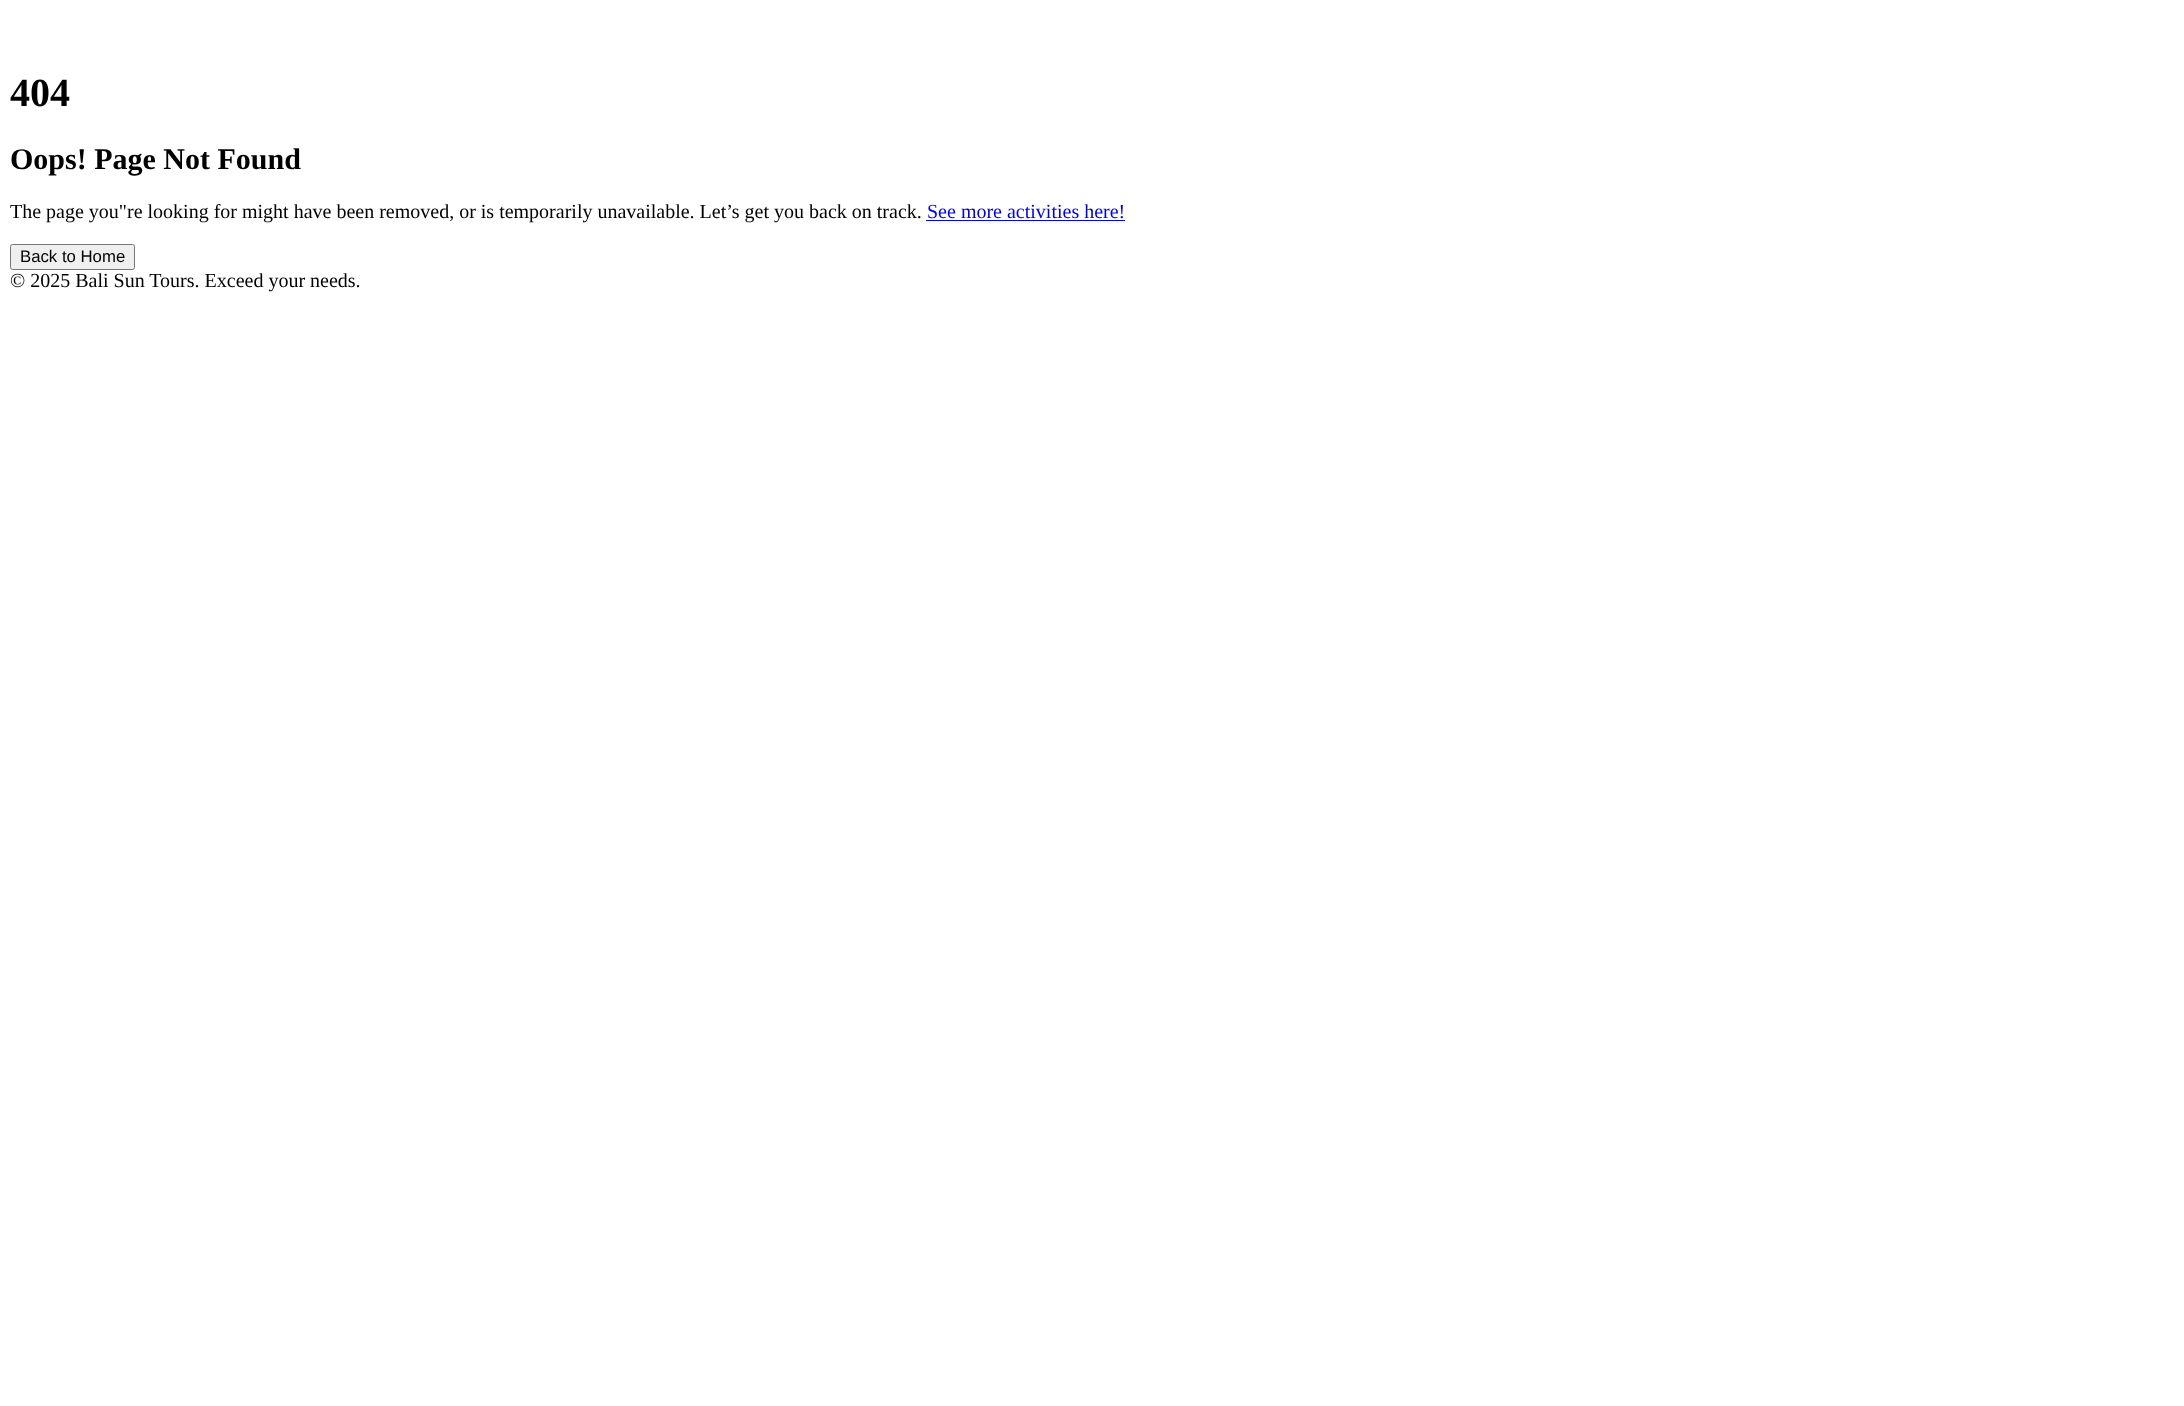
<!DOCTYPE html>
<meta charset="utf-8">
<style>body { margin: 0 } canvas { display: block }</style>
<canvas id="canvas" width="2184" height="1406"></canvas>
<script>
window.onload = function () {
	const canvas = document.getElementById("canvas");
	const ctx = canvas.getContext("2d");
	ctx.miterLimit = 4;
	ctx.fontKerning = "normal";
	function txt(s, x, y) {
		ctx.fillText(s, x, y);
	}
	function fill(x, y, w, h) {
		ctx.fillRect(x, y, w, h);
	}

	ctx.fillStyle = "#FFFFFF";
	fill(0, 0, 2184, 1406);
	ctx.fillStyle = "#0000EE";
	fill(926, 220, 199, 1);
	ctx.fillStyle = "#EFEFEF";
	ctx.beginPath();
	ctx.roundRect(10.5, 244.5, 124, 25, 2);
	ctx.fill();
	ctx.strokeStyle = "#767676";
	ctx.stroke();
	ctx.font = "bold 40px Liberation Serif";
	ctx.fillStyle = "#000000";
	txt("404", 10, 106);
	ctx.font = "bold 30px Liberation Serif";
	txt("Oops! Page Not Found", 10, 169);
	ctx.font = "20px Liberation Serif";
	txt("The page you\"re looking for might have been removed, or is temporarily unavailable. Let’s get you back on track.", 10, 218);
	ctx.fillStyle = "#0000EE";
	txt("See more activities here!", 927, 218);
	ctx.font = "16.75px Liberation Sans";
	ctx.fillStyle = "#000000";
	txt("Back to Home", 20, 262);
	ctx.font = "20px Liberation Serif";
	txt("© 2025 Bali Sun Tours. Exceed your needs.", 10, 287);
};
</script>
